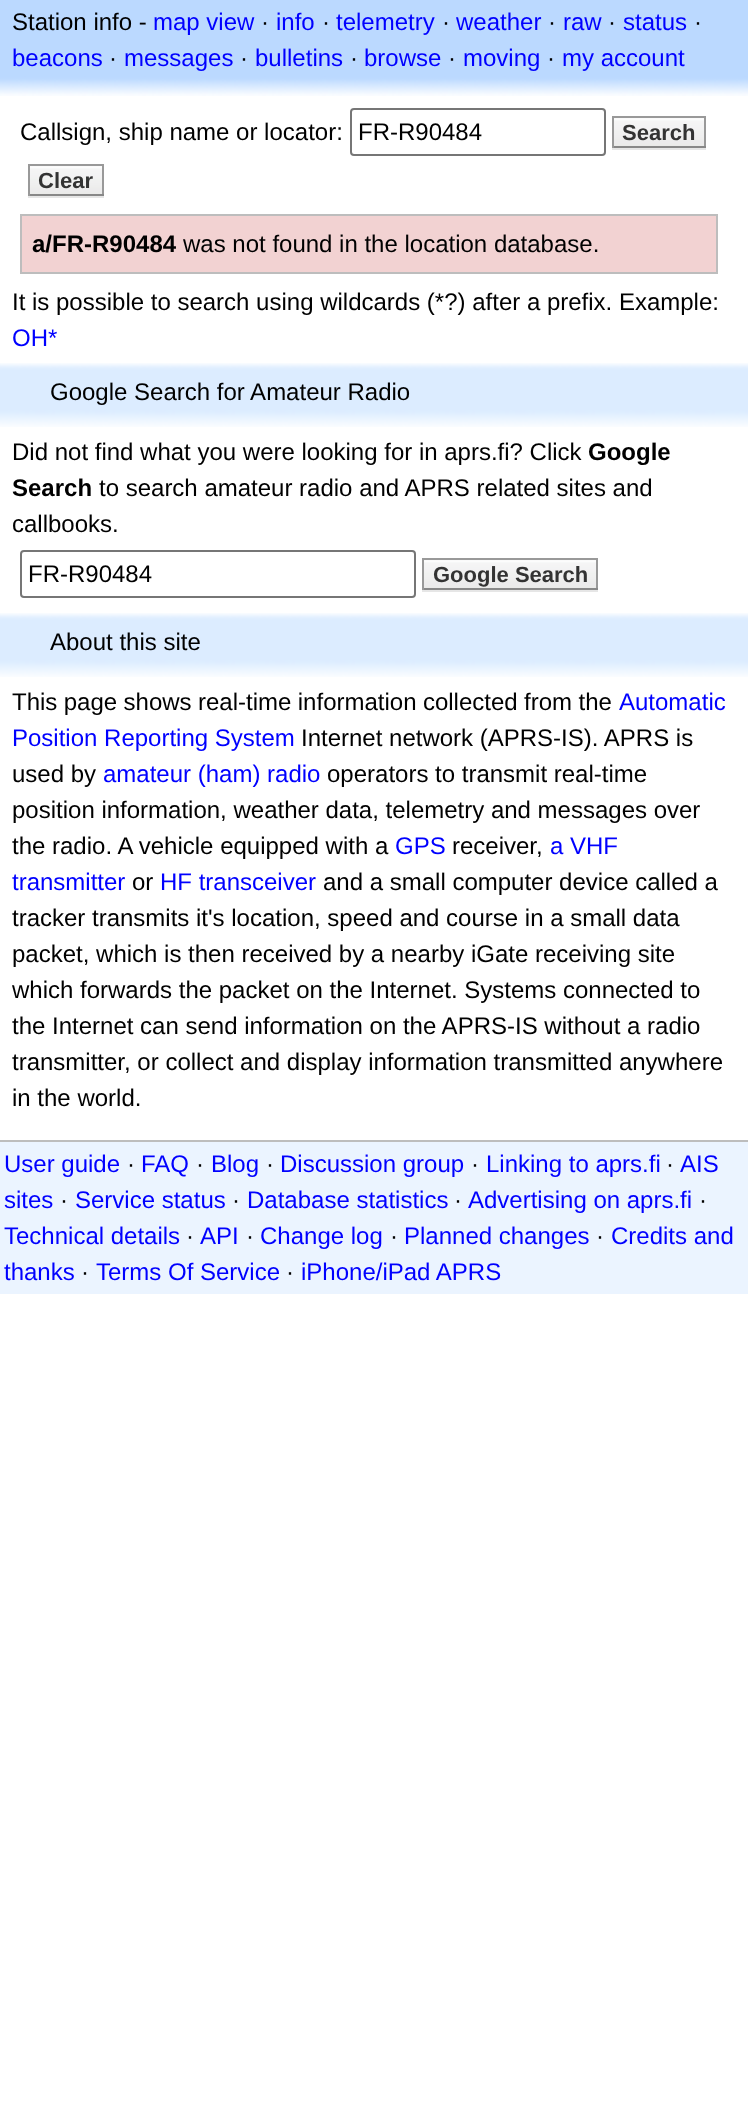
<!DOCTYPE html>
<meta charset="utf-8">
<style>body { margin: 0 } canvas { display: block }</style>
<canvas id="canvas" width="748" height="2126"></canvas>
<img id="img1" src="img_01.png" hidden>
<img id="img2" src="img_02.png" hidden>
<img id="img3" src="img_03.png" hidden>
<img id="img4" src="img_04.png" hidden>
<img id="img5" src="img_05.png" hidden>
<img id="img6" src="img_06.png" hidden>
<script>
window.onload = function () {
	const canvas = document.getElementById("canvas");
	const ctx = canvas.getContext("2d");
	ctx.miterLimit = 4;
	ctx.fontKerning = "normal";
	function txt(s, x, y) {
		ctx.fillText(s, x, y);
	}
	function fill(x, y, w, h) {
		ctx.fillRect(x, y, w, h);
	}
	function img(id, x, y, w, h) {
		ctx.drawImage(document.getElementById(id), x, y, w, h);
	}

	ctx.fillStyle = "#FFFFFF";
	fill(0, 0, 748, 2126);
	ctx.fillStyle = "#BBD9FF";
	fill(0, 0, 748, 76);
	img("img1", 0, 76, 748, 20);
	ctx.beginPath();
	ctx.roundRect(351, 109, 254, 46, 3);
	ctx.strokeStyle = "#767676";
	ctx.lineWidth = 2;
	ctx.stroke();
	ctx.fillStyle = "#E6E6E6";
	fill(612, 148, 94, 2);
	ctx.fillStyle = "#EEEEEE";
	fill(614, 118, 90, 1);
	img("img2", 614, 118, 90, 28);
	ctx.fillStyle = "#999999";
	fill(612, 116, 94, 2);
	fill(704, 116, 2, 32);
	ctx.fillStyle = "#888888";
	fill(612, 146, 94, 2);
	ctx.fillStyle = "#999999";
	fill(612, 116, 2, 32);
	ctx.fillStyle = "#E6E6E6";
	fill(28, 196, 76, 2);
	ctx.fillStyle = "#EEEEEE";
	fill(30, 166, 72, 1);
	img("img3", 30, 166, 72, 28);
	ctx.fillStyle = "#999999";
	fill(28, 164, 76, 2);
	fill(102, 164, 2, 32);
	ctx.fillStyle = "#888888";
	fill(28, 194, 76, 2);
	ctx.fillStyle = "#999999";
	fill(28, 164, 2, 32);
	ctx.fillStyle = "#F2D2D2";
	ctx.beginPath();
	ctx.rect(21, 215, 696, 58);
	ctx.fill();
	ctx.strokeStyle = "#BDBDBD";
	ctx.stroke();
	img("img4", 0, 363, 748, 7);
	ctx.fillStyle = "#DCECFF";
	fill(0, 370, 748, 40);
	img("img5", 0, 410, 748, 17);
	ctx.beginPath();
	ctx.roundRect(21, 551, 394, 46, 3);
	ctx.strokeStyle = "#767676";
	ctx.stroke();
	ctx.fillStyle = "#E6E6E6";
	fill(422, 590, 176, 2);
	ctx.fillStyle = "#EEEEEE";
	fill(424, 560, 172, 1);
	img("img6", 424, 560, 172, 28);
	ctx.fillStyle = "#999999";
	fill(422, 558, 176, 2);
	fill(596, 558, 2, 32);
	ctx.fillStyle = "#888888";
	fill(422, 588, 176, 2);
	ctx.fillStyle = "#999999";
	fill(422, 558, 2, 32);
	img("img4", 0, 613, 748, 7);
	ctx.fillStyle = "#DCECFF";
	fill(0, 620, 748, 40);
	img("img5", 0, 660, 748, 17);
	ctx.fillStyle = "#EBF4FF";
	fill(0, 1142, 748, 152);
	ctx.fillStyle = "#BDBDBD";
	fill(0, 1140, 748, 2);
	ctx.font = "24px Liberation Sans";
	ctx.fillStyle = "#000000";
	txt("Station info -", 12, 30);
	ctx.fillStyle = "#0000FF";
	txt("map view", 153, 30);
	ctx.fillStyle = "#000000";
	txt("·", 261, 30);
	ctx.fillStyle = "#0000FF";
	txt("info", 276, 30);
	ctx.fillStyle = "#000000";
	txt("·", 322, 30);
	ctx.fillStyle = "#0000FF";
	txt("telemetry", 336, 30);
	ctx.fillStyle = "#000000";
	txt("·", 442, 30);
	ctx.fillStyle = "#0000FF";
	txt("weather", 456, 30);
	ctx.fillStyle = "#000000";
	txt("·", 548, 30);
	ctx.fillStyle = "#0000FF";
	txt("raw", 563, 30);
	ctx.fillStyle = "#000000";
	txt("·", 608, 30);
	ctx.fillStyle = "#0000FF";
	txt("status", 623, 30);
	ctx.fillStyle = "#000000";
	txt("·", 694, 30);
	ctx.fillStyle = "#0000FF";
	txt("beacons", 12, 66);
	ctx.fillStyle = "#000000";
	txt("·", 109, 66);
	ctx.fillStyle = "#0000FF";
	txt("messages", 124, 66);
	ctx.fillStyle = "#000000";
	txt("·", 240, 66);
	ctx.fillStyle = "#0000FF";
	txt("bulletins", 255, 66);
	ctx.fillStyle = "#000000";
	txt("·", 350, 66);
	ctx.fillStyle = "#0000FF";
	txt("browse", 364, 66);
	ctx.fillStyle = "#000000";
	txt("·", 448, 66);
	ctx.fillStyle = "#0000FF";
	txt("moving", 463, 66);
	ctx.fillStyle = "#000000";
	txt("·", 547, 66);
	ctx.fillStyle = "#0000FF";
	txt("my account", 562, 66);
	ctx.fillStyle = "#000000";
	txt("Callsign, ship name or locator:", 20, 140);
	txt("FR-R90484", 358, 140);
	ctx.font = "bold 22px Liberation Sans";
	ctx.fillStyle = "#333333";
	txt("Search", 622, 140);
	txt("Clear", 38, 188);
	ctx.font = "bold 24px Liberation Sans";
	ctx.fillStyle = "#000000";
	txt("a/FR-R90484", 32, 252);
	ctx.font = "24px Liberation Sans";
	txt("was not found in the location database.", 183, 252);
	txt("It is possible to search using wildcards (*?) after a prefix. Example:", 12, 310);
	ctx.fillStyle = "#0000FF";
	txt("OH*", 12, 346);
	ctx.fillStyle = "#000000";
	txt("Google Search for Amateur Radio", 50, 400);
	txt("Did not find what you were looking for in aprs.fi? Click", 12, 460);
	ctx.font = "bold 24px Liberation Sans";
	txt("Google", 588, 460);
	txt("Search", 12, 496);
	ctx.font = "24px Liberation Sans";
	txt("to search amateur radio and APRS related sites and", 99, 496);
	txt("callbooks.", 12, 532);
	txt("FR-R90484", 28, 582);
	ctx.font = "bold 22px Liberation Sans";
	ctx.fillStyle = "#333333";
	txt("Google Search", 433, 582);
	ctx.font = "24px Liberation Sans";
	ctx.fillStyle = "#000000";
	txt("About this site", 50, 650);
	ctx.wordSpacing = "-0.25px";
	txt("This page shows real-time information collected from the", 12, 710);
	ctx.wordSpacing = "0px";
	ctx.fillStyle = "#0000FF";
	txt("Automatic", 619, 710);
	txt("Position Reporting System", 12, 746);
	ctx.fillStyle = "#000000";
	txt("Internet network (APRS-IS). APRS is", 301, 746);
	txt("used by", 12, 782);
	ctx.fillStyle = "#0000FF";
	txt("amateur (ham) radio", 103, 782);
	ctx.fillStyle = "#000000";
	txt("operators to transmit real-time", 327, 782);
	txt("position information, weather data, telemetry and messages over", 12, 818);
	txt("the radio. A vehicle equipped with a", 12, 854);
	ctx.fillStyle = "#0000FF";
	txt("GPS", 395, 854);
	ctx.fillStyle = "#000000";
	txt("receiver,", 452, 854);
	ctx.fillStyle = "#0000FF";
	txt("a VHF", 550, 854);
	txt("transmitter", 12, 890);
	ctx.fillStyle = "#000000";
	txt("or", 132, 890);
	ctx.fillStyle = "#0000FF";
	txt("HF transceiver", 160, 890);
	ctx.fillStyle = "#000000";
	txt("and a small computer device called a", 323, 890);
	txt("tracker transmits it's location, speed and course in a small data", 12, 926);
	txt("packet, which is then received by a nearby iGate receiving site", 12, 962);
	txt("which forwards the packet on the Internet. Systems connected to", 12, 998);
	txt("the Internet can send information on the APRS-IS without a radio", 12, 1034);
	txt("transmitter, or collect and display information transmitted anywhere", 12, 1070);
	txt("in the world.", 12, 1106);
	ctx.fillStyle = "#0000FF";
	txt("User guide", 4, 1172);
	ctx.fillStyle = "#000000";
	txt("·", 127, 1172);
	ctx.fillStyle = "#0000FF";
	txt("FAQ", 141, 1172);
	ctx.fillStyle = "#000000";
	txt("·", 196, 1172);
	ctx.fillStyle = "#0000FF";
	txt("Blog", 211, 1172);
	ctx.fillStyle = "#000000";
	txt("·", 266, 1172);
	ctx.fillStyle = "#0000FF";
	txt("Discussion group", 280, 1172);
	ctx.fillStyle = "#000000";
	txt("·", 471, 1172);
	ctx.fillStyle = "#0000FF";
	txt("Linking to aprs.fi", 486, 1172);
	ctx.fillStyle = "#000000";
	txt("·", 666, 1172);
	ctx.fillStyle = "#0000FF";
	txt("AIS", 680, 1172);
	txt("sites", 4, 1208);
	ctx.fillStyle = "#000000";
	txt("·", 60, 1208);
	ctx.fillStyle = "#0000FF";
	txt("Service status", 75, 1208);
	ctx.fillStyle = "#000000";
	txt("·", 232, 1208);
	ctx.fillStyle = "#0000FF";
	txt("Database statistics", 247, 1208);
	ctx.fillStyle = "#000000";
	txt("·", 454, 1208);
	ctx.fillStyle = "#0000FF";
	txt("Advertising on aprs.fi", 468, 1208);
	ctx.fillStyle = "#000000";
	txt("·", 699, 1208);
	ctx.fillStyle = "#0000FF";
	txt("Technical details", 4, 1244);
	ctx.fillStyle = "#000000";
	txt("·", 186, 1244);
	ctx.fillStyle = "#0000FF";
	txt("API", 200, 1244);
	ctx.fillStyle = "#000000";
	txt("·", 246, 1244);
	ctx.fillStyle = "#0000FF";
	txt("Change log", 260, 1244);
	ctx.fillStyle = "#000000";
	txt("·", 390, 1244);
	ctx.fillStyle = "#0000FF";
	txt("Planned changes", 404, 1244);
	ctx.fillStyle = "#000000";
	txt("·", 596, 1244);
	ctx.fillStyle = "#0000FF";
	txt("Credits and", 611, 1244);
	txt("thanks", 4, 1280);
	ctx.fillStyle = "#000000";
	txt("·", 81, 1280);
	ctx.fillStyle = "#0000FF";
	txt("Terms Of Service", 96, 1280);
	ctx.fillStyle = "#000000";
	txt("·", 286, 1280);
	ctx.fillStyle = "#0000FF";
	txt("iPhone/iPad APRS", 301, 1280);
};
</script>
